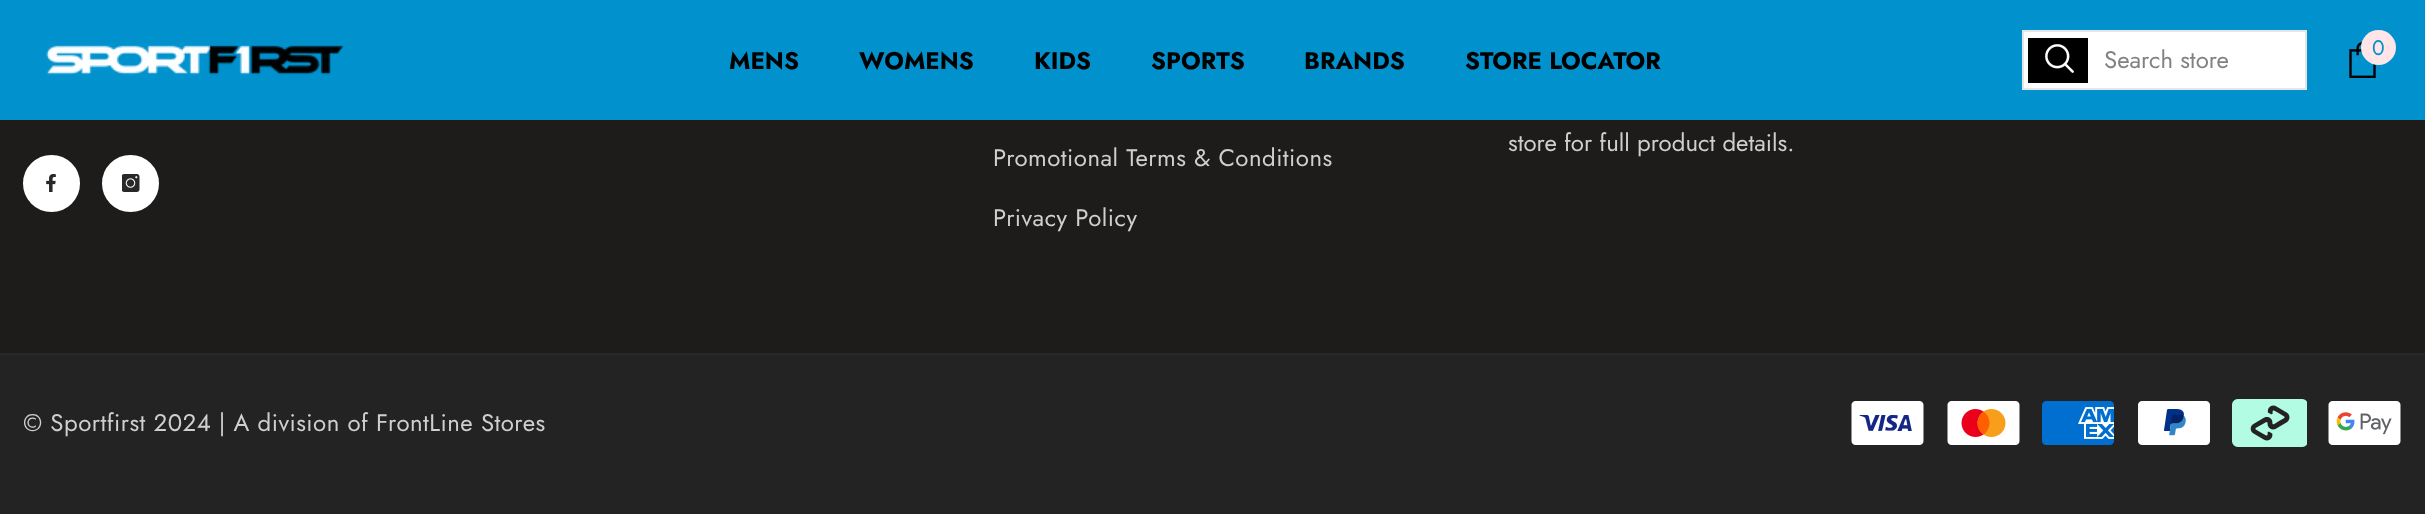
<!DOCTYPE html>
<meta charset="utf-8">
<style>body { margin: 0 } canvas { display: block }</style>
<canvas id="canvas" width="2425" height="514"></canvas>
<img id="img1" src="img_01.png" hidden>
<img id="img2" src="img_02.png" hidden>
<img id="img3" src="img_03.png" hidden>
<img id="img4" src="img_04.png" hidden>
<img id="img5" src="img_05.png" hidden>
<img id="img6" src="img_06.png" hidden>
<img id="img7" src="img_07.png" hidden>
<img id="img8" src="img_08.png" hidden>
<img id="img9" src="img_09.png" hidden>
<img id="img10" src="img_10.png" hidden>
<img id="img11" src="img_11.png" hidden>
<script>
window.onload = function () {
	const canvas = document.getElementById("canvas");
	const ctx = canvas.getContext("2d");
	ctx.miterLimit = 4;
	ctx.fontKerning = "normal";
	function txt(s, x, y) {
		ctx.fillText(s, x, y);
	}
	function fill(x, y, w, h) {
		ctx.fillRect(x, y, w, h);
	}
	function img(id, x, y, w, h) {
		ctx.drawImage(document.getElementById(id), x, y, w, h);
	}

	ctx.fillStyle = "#232323";
	fill(0, 0, 2425, 514);
	ctx.fillStyle = "#0192CE";
	fill(0, 0, 2425, 120);
	img("img1", 46, 45, 298, 30);
	ctx.fillStyle = "#FFFFFF";
	ctx.beginPath();
	ctx.rect(2023, 31, 283, 58);
	ctx.fill();
	ctx.strokeStyle = "#E5E5E5";
	ctx.lineWidth = 2;
	ctx.stroke();
	ctx.fillStyle = "#000000";
	fill(2028, 38, 60, 45);
	img("img2", 2045, 44, 29, 29);
	img("img3", 2349, 42, 27, 36);
	ctx.fillStyle = "#FFE5E8";
	ctx.beginPath();
	ctx.arc(2378.5, 47.5, 17.5, 0, Math.PI * 2);
	ctx.fill();
	ctx.fillStyle = "#1D1C1B";
	fill(0, 120, 2425, 233);
	ctx.fillStyle = "#FFFFFF";
	ctx.beginPath();
	ctx.arc(51.5, 183.5, 27.5, 0, Math.PI * 2);
	ctx.fill();
	ctx.strokeStyle = "#FFFFFF";
	ctx.stroke();
	img("img4", 46, 174, 10, 18);
	ctx.beginPath();
	ctx.arc(130.5, 183.5, 27.5, 0, Math.PI * 2);
	ctx.fill();
	ctx.stroke();
	img("img5", 122, 174, 18, 18);
	ctx.fillStyle = "#282828";
	fill(0, 353, 2425, 2);
	img("img6", 1851, 401, 73, 44);
	img("img7", 1947, 401, 73, 44);
	img("img8", 2042, 401, 72, 44);
	img("img9", 2138, 401, 72, 44);
	img("img10", 2232, 399, 75, 48);
	img("img11", 2328, 401, 73, 44);
	ctx.font = "bold 24px Jost";
	ctx.fillStyle = "#000000";
	txt("MENS", 729, 69);
	txt("WOMENS", 859, 69);
	txt("KIDS", 1034, 69);
	txt("SPORTS", 1151, 69);
	txt("BRANDS", 1304, 69);
	txt("STORE LOCATOR", 1465, 69);
	ctx.font = "24px Jost";
	ctx.fillStyle = "#828282";
	txt("Search store", 2104, 68);
	ctx.font = "21px Jost";
	ctx.fillStyle = "#0192CE";
	txt("0", 2372, 55);
	ctx.font = "24px Jost";
	ctx.fillStyle = "#CFCFCF";
	txt("store for full product details.", 1508, 151);
	ctx.letterSpacing = "0.48px";
	txt("Promotional Terms & Conditions", 993, 166);
	txt("Privacy Policy", 993, 226);
	txt("© Sportfirst 2024 | A division of FrontLine Stores", 23, 431);
};
</script>
